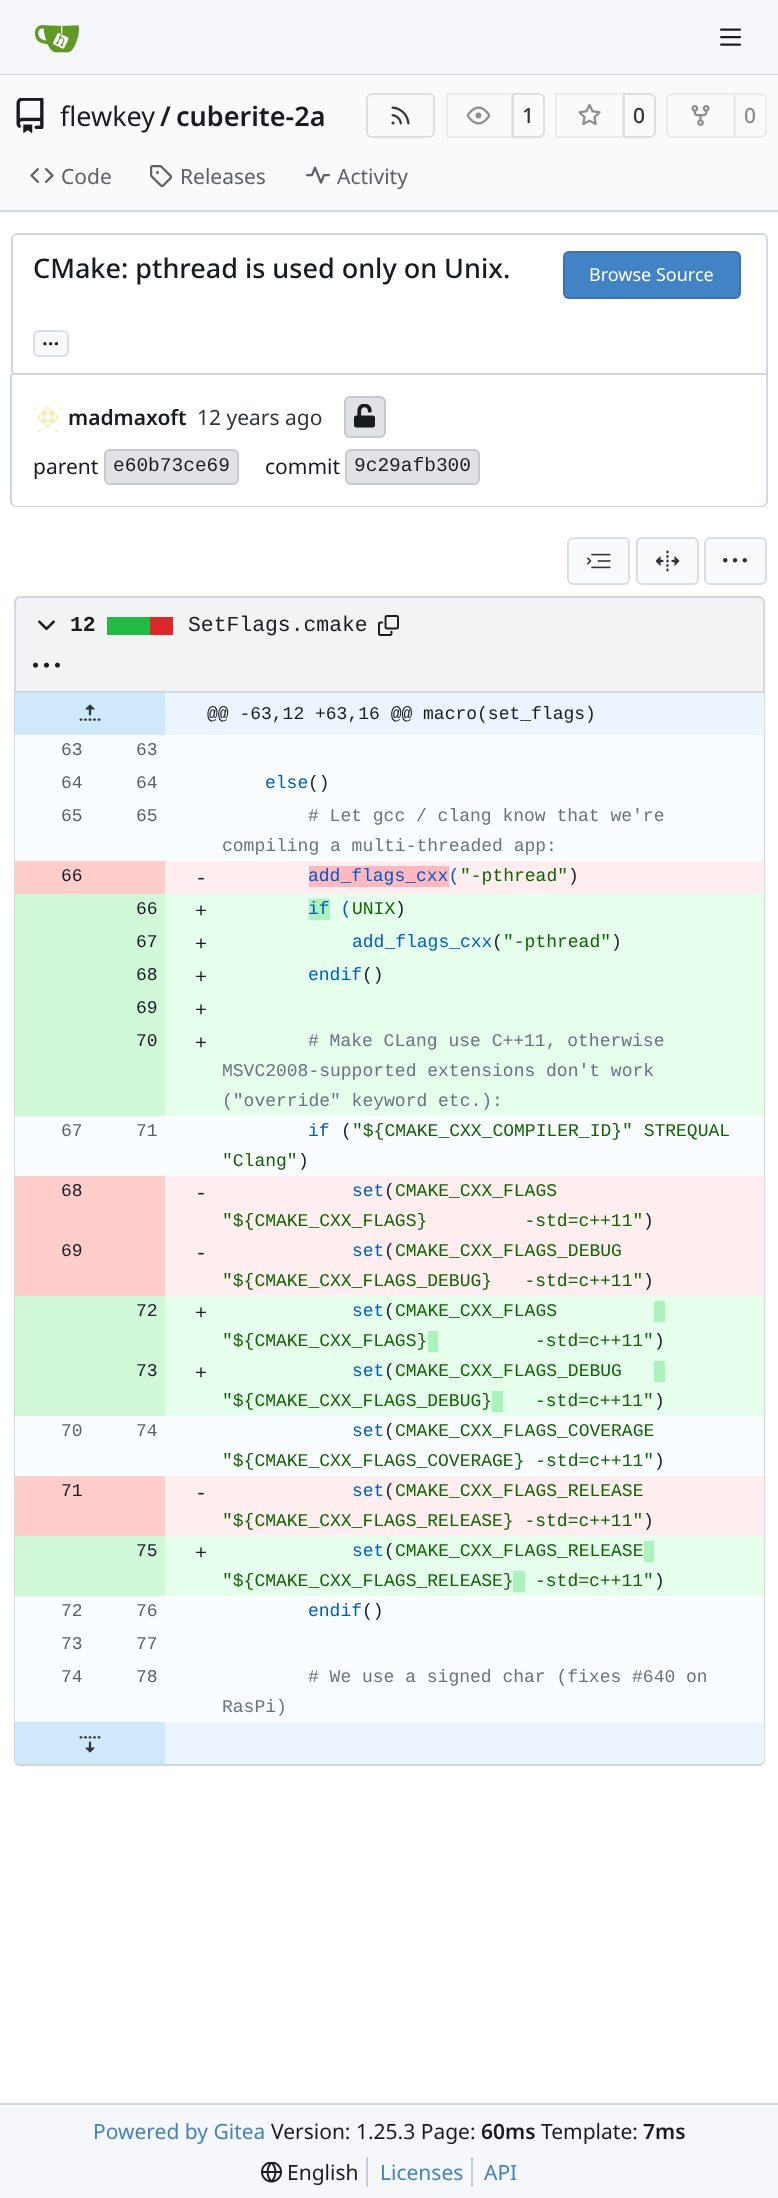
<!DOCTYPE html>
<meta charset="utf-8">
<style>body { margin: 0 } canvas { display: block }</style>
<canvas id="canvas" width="778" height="2198"></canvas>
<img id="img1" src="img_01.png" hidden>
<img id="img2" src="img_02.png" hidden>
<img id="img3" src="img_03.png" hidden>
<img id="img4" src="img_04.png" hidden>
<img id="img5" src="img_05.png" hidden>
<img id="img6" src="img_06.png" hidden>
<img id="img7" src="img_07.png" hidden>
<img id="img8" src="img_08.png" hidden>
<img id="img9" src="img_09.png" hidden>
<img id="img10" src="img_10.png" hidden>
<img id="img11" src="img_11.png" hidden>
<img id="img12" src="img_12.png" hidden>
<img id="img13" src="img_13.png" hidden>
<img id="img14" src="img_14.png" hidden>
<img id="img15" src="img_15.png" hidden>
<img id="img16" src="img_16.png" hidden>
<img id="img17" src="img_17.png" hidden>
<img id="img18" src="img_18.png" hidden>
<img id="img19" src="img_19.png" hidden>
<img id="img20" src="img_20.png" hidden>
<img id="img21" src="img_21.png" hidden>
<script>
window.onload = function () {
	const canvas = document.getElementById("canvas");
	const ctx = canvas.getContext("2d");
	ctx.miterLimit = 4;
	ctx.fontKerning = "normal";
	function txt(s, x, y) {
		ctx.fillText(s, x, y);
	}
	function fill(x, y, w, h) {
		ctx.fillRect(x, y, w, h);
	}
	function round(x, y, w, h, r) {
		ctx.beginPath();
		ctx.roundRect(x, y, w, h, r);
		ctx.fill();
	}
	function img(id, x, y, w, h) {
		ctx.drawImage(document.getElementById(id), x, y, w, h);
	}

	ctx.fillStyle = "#FFFFFF";
	fill(0, 0, 778, 2198);
	ctx.fillStyle = "#F6F7FA";
	fill(0, 0, 778, 74);
	ctx.fillStyle = "#D0D7DE";
	fill(0, 74, 778, 1);
	img("img1", 35, 25, 45, 28);
	img("img2", 720, 28, 21, 18);
	ctx.fillStyle = "#F9FAFB";
	fill(0, 75, 778, 135);
	img("img3", 16, 98, 28, 35);
	ctx.beginPath();
	ctx.roundRect(367, 94, 67, 43, 5);
	ctx.strokeStyle = "#DDDEE1";
	ctx.lineWidth = 2;
	ctx.stroke();
	img("img4", 391, 106, 19, 19);
	ctx.beginPath();
	ctx.roundRect(513, 94, 31, 43, [0, 5, 5, 0]);
	ctx.stroke();
	ctx.fillStyle = "rgba(248, 249, 251, 0.55)";
	ctx.beginPath();
	ctx.roundRect(446, 93, 67, 45, [6, 0, 0, 6]);
	ctx.fill();
	ctx.strokeStyle = "rgba(0, 0, 23, 0.06)";
	ctx.strokeRect(447, 94, 65, 43);
	img("img5", 467, 106, 24, 19);
	ctx.beginPath();
	ctx.roundRect(624, 94, 31, 43, [0, 5, 5, 0]);
	ctx.strokeStyle = "#DDDEE1";
	ctx.stroke();
	ctx.beginPath();
	ctx.roundRect(555, 93, 69, 45, [6, 0, 0, 6]);
	ctx.fill();
	ctx.strokeStyle = "rgba(0, 0, 23, 0.06)";
	ctx.strokeRect(556, 94, 67, 43);
	img("img6", 578, 104, 23, 22);
	ctx.beginPath();
	ctx.roundRect(667, 94, 67, 43, [5, 0, 0, 5]);
	ctx.strokeStyle = "#E9EAED";
	ctx.stroke();
	img("img7", 691, 105, 19, 21);
	ctx.fillStyle = "#F8F9FB";
	ctx.beginPath();
	ctx.roundRect(735, 94, 31, 43, [0, 5, 5, 0]);
	ctx.fill();
	ctx.stroke();
	img("img8", 30, 168, 24, 15);
	img("img9", 150, 165, 23, 23);
	img("img10", 306, 166, 24, 18);
	ctx.fillStyle = "#D0D7DE";
	fill(0, 210, 778, 2);
	ctx.beginPath();
	ctx.roundRect(12, 234, 755, 140, [5, 5, 0, 0]);
	ctx.strokeStyle = "#D0D7DE";
	ctx.stroke();
	ctx.fillStyle = "#4183C4";
	round(563, 251, 178, 48, 6);
	ctx.beginPath();
	ctx.roundRect(564, 252, 176, 46, 5);
	ctx.strokeStyle = "rgba(0, 0, 23, 0.11)";
	ctx.stroke();
	ctx.fillStyle = "#F8F9FB";
	ctx.beginPath();
	ctx.roundRect(34, 331, 34, 25, 5);
	ctx.fill();
	ctx.strokeStyle = "#DCDDE1";
	ctx.stroke();
	ctx.fillStyle = "#D0D7DE";
	ctx.beginPath();
	ctx.moveTo(10, 375);
	ctx.lineTo(768, 375);
	ctx.lineTo(768, 501);
	ctx.bezierCurveTo(768, 504, 765, 507, 762, 507);
	ctx.lineTo(16, 507);
	ctx.bezierCurveTo(13, 507, 10, 504, 10, 501);
	ctx.closePath();
	ctx.moveTo(12, 375);
	ctx.lineTo(766, 375);
	ctx.lineTo(766, 501);
	ctx.bezierCurveTo(766, 503, 764, 506, 762, 506);
	ctx.lineTo(16, 506);
	ctx.bezierCurveTo(14, 506, 12, 503, 12, 501);
	ctx.closePath();
	ctx.fill("evenodd");
	img("img11", 33, 406, 30, 26);
	ctx.fillStyle = "#E0E2E5";
	round(344, 396, 42, 42, 6);
	ctx.beginPath();
	ctx.roundRect(345, 397, 40, 40, 5);
	ctx.strokeStyle = "rgba(0, 0, 23, 0.11)";
	ctx.stroke();
	img("img12", 354, 404, 21, 24);
	round(104, 449, 135, 36, 6);
	ctx.beginPath();
	ctx.roundRect(105, 450, 133, 34, 5);
	ctx.stroke();
	round(345, 449, 135, 36, 6);
	ctx.beginPath();
	ctx.roundRect(346, 450, 133, 34, 5);
	ctx.stroke();
	ctx.fillStyle = "#F8F9FB";
	ctx.beginPath();
	ctx.roundRect(568, 538, 61, 46, 5);
	ctx.fill();
	ctx.strokeStyle = "#DCDDE1";
	ctx.stroke();
	img("img13", 587, 553, 24, 16);
	ctx.beginPath();
	ctx.roundRect(637, 538, 61, 46, 5);
	ctx.fill();
	ctx.stroke();
	img("img14", 656, 550, 24, 22);
	ctx.beginPath();
	ctx.roundRect(705, 538, 61, 46, 5);
	ctx.fill();
	ctx.stroke();
	img("img15", 723, 558, 24, 5);
	ctx.fillStyle = "#F1F3F5";
	ctx.beginPath();
	ctx.roundRect(15, 597, 749, 95, [5, 5, 0, 0]);
	ctx.fill();
	ctx.strokeStyle = "#D0D7DE";
	ctx.stroke();
	img("img16", 38, 620, 17, 11);
	ctx.fillStyle = "#DB2828";
	fill(150, 617, 23, 18);
	ctx.fillStyle = "#21BA45";
	fill(107, 617, 43, 18);
	img("img17", 378, 615, 21, 21);
	img("img18", 33, 662, 27, 6);
	ctx.fillStyle = "#D0D7DE";
	ctx.beginPath();
	ctx.moveTo(14, 693);
	ctx.lineTo(765, 693);
	ctx.lineTo(765, 1760);
	ctx.bezierCurveTo(765, 1763, 762, 1766, 759, 1766);
	ctx.lineTo(20, 1766);
	ctx.bezierCurveTo(16, 1766, 14, 1763, 14, 1760);
	ctx.closePath();
	ctx.moveTo(15, 693);
	ctx.lineTo(764, 693);
	ctx.lineTo(764, 1760);
	ctx.bezierCurveTo(764, 1762, 761, 1764, 759, 1764);
	ctx.lineTo(20, 1764);
	ctx.bezierCurveTo(17, 1764, 15, 1762, 15, 1760);
	ctx.closePath();
	ctx.fill("evenodd");
	ctx.fillStyle = "#FAFDFF";
	round(15, 693, 749, 1071, 6);
	ctx.fillStyle = "#ECF5FD";
	fill(165, 693, 599, 42);
	ctx.fillStyle = "#CFE8FA";
	fill(15, 693, 150, 42);
	img("img19", 79, 704, 22, 17);
	ctx.fillStyle = "#FFEEF0";
	fill(165, 861, 599, 33);
	ctx.fillStyle = "#FFCECB";
	fill(15, 861, 150, 33);
	ctx.fillStyle = "#FDB8C0";
	fill(309, 866, 140, 21);
	ctx.fillStyle = "#E6FFED";
	fill(165, 894, 599, 222);
	ctx.fillStyle = "#D1F8D9";
	fill(15, 894, 150, 33);
	ctx.fillStyle = "#ACF2BD";
	fill(309, 899, 21, 21);
	ctx.fillStyle = "#D1F8D9";
	fill(15, 927, 150, 33);
	fill(15, 960, 150, 33);
	fill(15, 993, 150, 33);
	fill(15, 1026, 150, 90);
	ctx.fillStyle = "#FFEEF0";
	fill(165, 1176, 599, 120);
	ctx.fillStyle = "#FFCECB";
	fill(15, 1176, 150, 60);
	fill(15, 1236, 150, 60);
	ctx.fillStyle = "#E6FFED";
	fill(165, 1296, 599, 120);
	ctx.fillStyle = "#D1F8D9";
	fill(15, 1296, 150, 60);
	ctx.fillStyle = "#ACF2BD";
	fill(428, 1331, 10, 21);
	fill(654, 1301, 11, 21);
	ctx.fillStyle = "#D1F8D9";
	fill(15, 1356, 150, 60);
	ctx.fillStyle = "#ACF2BD";
	fill(654, 1361, 11, 21);
	fill(492, 1391, 11, 21);
	ctx.fillStyle = "#FFEEF0";
	fill(165, 1476, 599, 60);
	ctx.fillStyle = "#FFCECB";
	fill(15, 1476, 150, 60);
	ctx.fillStyle = "#E6FFED";
	fill(165, 1536, 599, 60);
	ctx.fillStyle = "#D1F8D9";
	fill(15, 1536, 150, 60);
	ctx.fillStyle = "#ACF2BD";
	fill(644, 1541, 10, 21);
	fill(513, 1571, 12, 21);
	ctx.fillStyle = "#CFE8FA";
	ctx.beginPath();
	ctx.roundRect(15, 1722, 150, 42, [0, 0, 0, 5]);
	ctx.fill();
	img("img20", 79, 1736, 22, 17);
	ctx.fillStyle = "#ECF5FD";
	fill(165, 1722, 42, 42);
	ctx.beginPath();
	ctx.roundRect(207, 1722, 557, 42, [0, 0, 5, 0]);
	ctx.fill();
	ctx.fillStyle = "#F6F7FA";
	fill(0, 2105, 778, 93);
	ctx.fillStyle = "#D0D7DE";
	fill(0, 2103, 778, 2);
	img("img21", 261, 2162, 21, 21);
	ctx.fillStyle = "#C7CED5";
	fill(366, 2157, 2, 30);
	fill(471, 2157, 2, 30);
	ctx.font = "27px Noto Sans";
	ctx.fillStyle = "#181C21";
	txt("flewkey", 60, 126);
	ctx.font = "600 27px Noto Sans";
	txt("/", 160, 126);
	txt("cuberite-2a", 176, 126);
	ctx.font = "500 21px Noto Sans";
	ctx.fillStyle = "#30363B";
	txt("1", 522, 123);
	txt("0", 633, 123);
	ctx.fillStyle = "#8A8E91";
	txt("0", 744, 123);
	ctx.font = "21px Noto Sans";
	ctx.fillStyle = "#5B6167";
	txt("Code", 61, 184);
	txt("Releases", 180, 184);
	txt("Activity", 337, 184);
	ctx.font = "500 27px Noto Sans";
	ctx.fillStyle = "#181C21";
	txt("CMake: pthread is used only on Unix.", 33, 278);
	ctx.font = "18px Noto Sans";
	ctx.fillStyle = "#FFFFFF";
	txt("Browse Source", 589, 281);
	ctx.font = "600 21px Noto Sans";
	ctx.fillStyle = "#181C21";
	txt("...", 42, 345);
	txt("madmaxoft", 68, 425);
	ctx.font = "21px Noto Sans";
	ctx.fillStyle = "#30363B";
	txt("12 years ago", 197, 425);
	ctx.fillStyle = "#181C21";
	txt("parent", 33, 474);
	ctx.font = "19.5px Liberation Mono";
	txt("e60b73ce69", 113, 471);
	ctx.font = "21px Noto Sans";
	txt("commit", 265, 474);
	ctx.font = "19.5px Liberation Mono";
	txt("9c29afb300", 354, 471);
	ctx.font = "bold 21.4px Liberation Mono";
	txt("12", 70, 631);
	ctx.font = "21.4px Liberation Mono";
	txt("SetFlags.cmake", 188, 631);
	ctx.font = "18px Liberation Mono";
	txt("@@ -63,12 +63,16 @@ macro(set_flags)", 207, 719);
	ctx.fillStyle = "#5B6167";
	txt("63", 61, 755);
	txt("63", 136, 755);
	txt("64", 61, 788);
	txt("64", 136, 788);
	ctx.fillStyle = "#005CC5";
	txt("else", 265, 788);
	ctx.fillStyle = "#181C21";
	txt("()", 308, 788);
	ctx.fillStyle = "#5B6167";
	txt("65", 61, 821);
	txt("65", 136, 821);
	ctx.fillStyle = "#6A737D";
	txt("# Let gcc / clang know that we're", 308, 821);
	txt("compiling a multi-threaded app:", 222, 851);
	ctx.fillStyle = "#181C21";
	txt("66", 61, 881);
	ctx.font = "20px Liberation Mono";
	txt("-", 195, 884);
	ctx.font = "18px Liberation Mono";
	ctx.fillStyle = "#005CC5";
	txt("add_flags_cxx(", 308, 881);
	ctx.fillStyle = "#106303";
	txt("\"-pthread\"", 460, 881);
	ctx.fillStyle = "#181C21";
	txt(")", 568, 881);
	ctx.fillStyle = "#005CC5";
	txt("if (", 308, 914);
	ctx.fillStyle = "#106303";
	txt("UNIX", 352, 914);
	ctx.fillStyle = "#181C21";
	txt(")", 395, 914);
	txt("66", 136, 914);
	ctx.font = "20px Liberation Mono";
	txt("+", 195, 917);
	ctx.font = "18px Liberation Mono";
	ctx.fillStyle = "#005CC5";
	txt("add_flags_cxx", 352, 947);
	ctx.fillStyle = "#181C21";
	txt("(", 492, 947);
	ctx.fillStyle = "#106303";
	txt("\"-pthread\"", 503, 947);
	ctx.fillStyle = "#181C21";
	txt(")", 611, 947);
	txt("67", 136, 947);
	ctx.font = "20px Liberation Mono";
	txt("+", 195, 950);
	ctx.font = "18px Liberation Mono";
	ctx.fillStyle = "#005CC5";
	txt("endif", 308, 980);
	ctx.fillStyle = "#181C21";
	txt("()", 362, 980);
	txt("68", 136, 980);
	ctx.font = "20px Liberation Mono";
	txt("+", 195, 983);
	ctx.font = "18px Liberation Mono";
	txt("69", 136, 1013);
	ctx.font = "20px Liberation Mono";
	txt("+", 195, 1016);
	ctx.font = "18px Liberation Mono";
	ctx.fillStyle = "#6A737D";
	txt("# Make CLang use C++11, otherwise", 308, 1046);
	txt("MSVC2008-supported extensions don't work", 222, 1076);
	txt("(\"override\" keyword etc.):", 222, 1106);
	ctx.fillStyle = "#181C21";
	txt("70", 136, 1046);
	ctx.font = "20px Liberation Mono";
	txt("+", 195, 1049);
	ctx.font = "18px Liberation Mono";
	ctx.fillStyle = "#5B6167";
	txt("67", 61, 1136);
	txt("71", 136, 1136);
	ctx.fillStyle = "#005CC5";
	txt("if", 308, 1136);
	ctx.fillStyle = "#181C21";
	txt("(", 341, 1136);
	ctx.fillStyle = "#106303";
	txt("\"${CMAKE_CXX_COMPILER_ID}\" STREQUAL", 352, 1136);
	txt("\"Clang\"", 222, 1166);
	ctx.fillStyle = "#181C21";
	txt(")", 298, 1166);
	txt("68", 61, 1196);
	ctx.font = "20px Liberation Mono";
	txt("-", 195, 1199);
	ctx.font = "18px Liberation Mono";
	ctx.fillStyle = "#005CC5";
	txt("set", 352, 1196);
	ctx.fillStyle = "#181C21";
	txt("(", 384, 1196);
	ctx.fillStyle = "#106303";
	txt("CMAKE_CXX_FLAGS", 395, 1196);
	txt("\"${CMAKE_CXX_FLAGS}         -std=c++11\"", 222, 1226);
	ctx.fillStyle = "#181C21";
	txt(")", 643, 1226);
	txt("69", 61, 1256);
	ctx.font = "20px Liberation Mono";
	txt("-", 195, 1259);
	ctx.font = "18px Liberation Mono";
	ctx.fillStyle = "#005CC5";
	txt("set", 352, 1256);
	ctx.fillStyle = "#181C21";
	txt("(", 384, 1256);
	ctx.fillStyle = "#106303";
	txt("CMAKE_CXX_FLAGS_DEBUG", 395, 1256);
	txt("\"${CMAKE_CXX_FLAGS_DEBUG}   -std=c++11\"", 222, 1286);
	ctx.fillStyle = "#181C21";
	txt(")", 643, 1286);
	ctx.fillStyle = "#005CC5";
	txt("set", 352, 1316);
	ctx.fillStyle = "#181C21";
	txt("(", 384, 1316);
	ctx.fillStyle = "#106303";
	txt("CMAKE_CXX_FLAGS", 395, 1316);
	txt("\"${CMAKE_CXX_FLAGS}", 222, 1346);
	txt("-std=c++11\"", 535, 1346);
	ctx.fillStyle = "#181C21";
	txt(")", 654, 1346);
	txt("72", 136, 1316);
	ctx.font = "20px Liberation Mono";
	txt("+", 195, 1319);
	ctx.font = "18px Liberation Mono";
	ctx.fillStyle = "#005CC5";
	txt("set", 352, 1376);
	ctx.fillStyle = "#181C21";
	txt("(", 384, 1376);
	ctx.fillStyle = "#106303";
	txt("CMAKE_CXX_FLAGS_DEBUG", 395, 1376);
	txt("\"${CMAKE_CXX_FLAGS_DEBUG}", 222, 1406);
	txt("-std=c++11\"", 535, 1406);
	ctx.fillStyle = "#181C21";
	txt(")", 654, 1406);
	txt("73", 136, 1376);
	ctx.font = "20px Liberation Mono";
	txt("+", 195, 1379);
	ctx.font = "18px Liberation Mono";
	ctx.fillStyle = "#5B6167";
	txt("70", 61, 1436);
	txt("74", 136, 1436);
	ctx.fillStyle = "#005CC5";
	txt("set", 352, 1436);
	ctx.fillStyle = "#181C21";
	txt("(", 384, 1436);
	ctx.fillStyle = "#106303";
	txt("CMAKE_CXX_FLAGS_COVERAGE", 395, 1436);
	txt("\"${CMAKE_CXX_FLAGS_COVERAGE} -std=c++11\"", 222, 1466);
	ctx.fillStyle = "#181C21";
	txt(")", 654, 1466);
	txt("71", 61, 1496);
	ctx.font = "20px Liberation Mono";
	txt("-", 195, 1499);
	ctx.font = "18px Liberation Mono";
	ctx.fillStyle = "#005CC5";
	txt("set", 352, 1496);
	ctx.fillStyle = "#181C21";
	txt("(", 384, 1496);
	ctx.fillStyle = "#106303";
	txt("CMAKE_CXX_FLAGS_RELEASE", 395, 1496);
	txt("\"${CMAKE_CXX_FLAGS_RELEASE} -std=c++11\"", 222, 1526);
	ctx.fillStyle = "#181C21";
	txt(")", 643, 1526);
	ctx.fillStyle = "#005CC5";
	txt("set", 352, 1556);
	ctx.fillStyle = "#181C21";
	txt("(", 384, 1556);
	ctx.fillStyle = "#106303";
	txt("CMAKE_CXX_FLAGS_RELEASE", 395, 1556);
	txt("\"${CMAKE_CXX_FLAGS_RELEASE}", 222, 1586);
	txt("-std=c++11\"", 535, 1586);
	ctx.fillStyle = "#181C21";
	txt(")", 654, 1586);
	txt("75", 136, 1556);
	ctx.font = "20px Liberation Mono";
	txt("+", 195, 1559);
	ctx.font = "18px Liberation Mono";
	ctx.fillStyle = "#5B6167";
	txt("72", 61, 1616);
	txt("76", 136, 1616);
	ctx.fillStyle = "#005CC5";
	txt("endif", 308, 1616);
	ctx.fillStyle = "#181C21";
	txt("()", 362, 1616);
	ctx.fillStyle = "#5B6167";
	txt("73", 61, 1649);
	txt("77", 136, 1649);
	txt("74", 61, 1682);
	txt("78", 136, 1682);
	ctx.fillStyle = "#6A737D";
	txt("# We use a signed char (fixes #640 on", 308, 1682);
	txt("RasPi)", 222, 1712);
	ctx.font = "21px Noto Sans";
	ctx.fillStyle = "#4183C4";
	txt("Powered by Gitea", 93, 2139);
	ctx.fillStyle = "#181C21";
	txt("Version: 1.25.3 Page:", 271, 2139);
	ctx.font = "600 21px Noto Sans";
	txt("60ms", 481, 2139);
	ctx.font = "21px Noto Sans";
	txt("Template:", 541, 2139);
	ctx.font = "600 21px Noto Sans";
	txt("7ms", 643, 2139);
	ctx.font = "21px Noto Sans";
	txt("English", 287, 2180);
	ctx.fillStyle = "#4183C4";
	txt("Licenses", 380, 2180);
	txt("API", 484, 2180);
};
</script>
